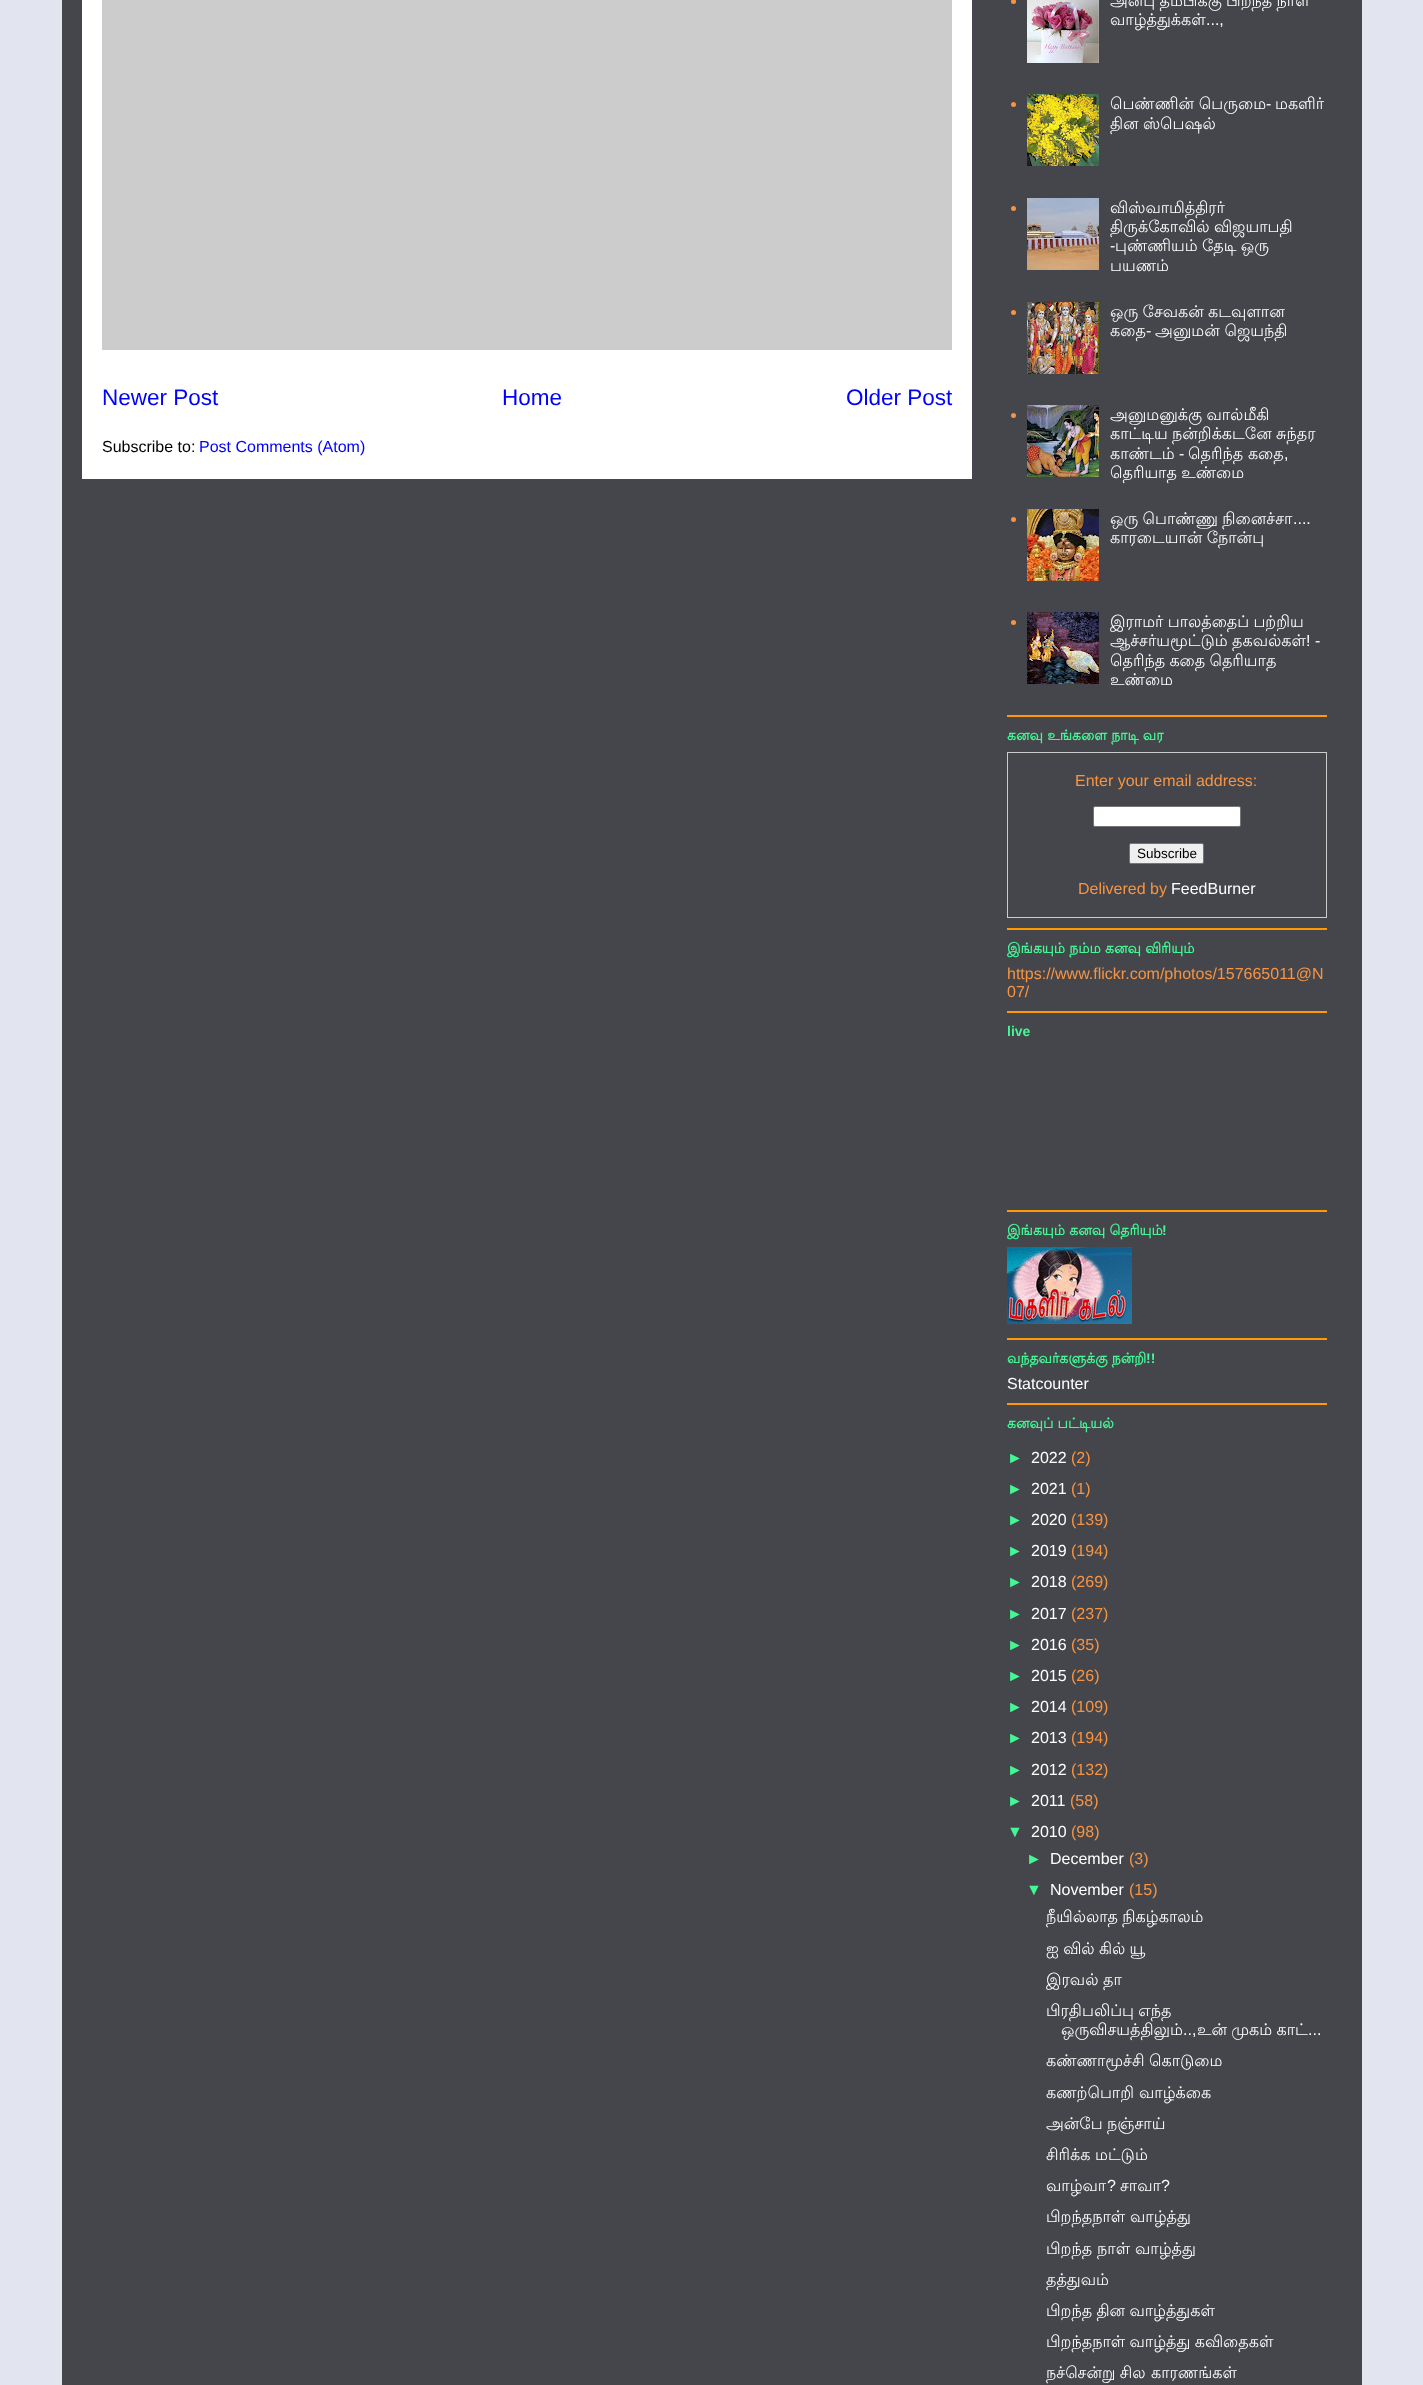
<!DOCTYPE html>
<meta charset="utf-8">
<style>body { margin: 0 } canvas { display: block }</style>
<canvas id="canvas" width="1423" height="2385"></canvas>
<img id="img1" src="img_01.png" hidden>
<img id="img2" src="img_02.png" hidden>
<img id="img3" src="img_03.png" hidden>
<img id="img4" src="img_04.png" hidden>
<img id="img5" src="img_05.png" hidden>
<img id="img6" src="img_06.png" hidden>
<img id="img7" src="img_07.png" hidden>
<img id="img8" src="img_08.png" hidden>
<script>
window.onload = function () {
	const canvas = document.getElementById("canvas");
	const ctx = canvas.getContext("2d");
	ctx.miterLimit = 4;
	ctx.fontKerning = "normal";
	function txt(s, x, y) {
		ctx.fillText(s, x, y);
	}
	function fill(x, y, w, h) {
		ctx.fillRect(x, y, w, h);
	}
	function img(id, x, y, w, h) {
		ctx.drawImage(document.getElementById(id), x, y, w, h);
	}

	ctx.fillStyle = "#E2E5F0";
	fill(0, 0, 1423, 2385);
	ctx.fillStyle = "#45464B";
	fill(62, 0, 1300, 2385);
	ctx.fillStyle = "#FFFFFF";
	fill(82, 0, 890, 479);
	ctx.fillStyle = "#CCCCCC";
	fill(102, 0, 850, 350);
	ctx.fillStyle = "#FF9900";
	fill(1007, 715, 320, 2);
	ctx.fillStyle = "#F79443";
	ctx.beginPath();
	ctx.arc(1013.5, 1.5, 2.5, 0, Math.PI * 2);
	ctx.fill();
	img("img1", 1027, 0, 72, 63);
	ctx.beginPath();
	ctx.arc(1013.5, 104.5, 2.5, 0, Math.PI * 2);
	ctx.fill();
	img("img2", 1027, 94, 72, 72);
	ctx.beginPath();
	ctx.arc(1013.5, 208.5, 2.5, 0, Math.PI * 2);
	ctx.fill();
	img("img3", 1027, 198, 72, 72);
	ctx.beginPath();
	ctx.arc(1013.5, 312.5, 2.5, 0, Math.PI * 2);
	ctx.fill();
	img("img4", 1027, 302, 72, 72);
	ctx.beginPath();
	ctx.arc(1013.5, 415.5, 2.5, 0, Math.PI * 2);
	ctx.fill();
	img("img5", 1027, 405, 72, 72);
	ctx.beginPath();
	ctx.arc(1013.5, 519.5, 2.5, 0, Math.PI * 2);
	ctx.fill();
	img("img6", 1027, 509, 72, 72);
	ctx.beginPath();
	ctx.arc(1013.5, 622.5, 2.5, 0, Math.PI * 2);
	ctx.fill();
	img("img7", 1027, 612, 72, 72);
	ctx.fillStyle = "#FF9900";
	fill(1007, 928, 320, 2);
	ctx.strokeStyle = "#CCCCCC";
	ctx.strokeRect(1007.5, 752.5, 319, 165);
	ctx.fillStyle = "#FFFFFF";
	ctx.beginPath();
	ctx.roundRect(1093.5, 806.5, 147, 20, 1.5);
	ctx.fill();
	ctx.strokeStyle = "#767676";
	ctx.stroke();
	ctx.fillStyle = "#EFEFEF";
	ctx.beginPath();
	ctx.roundRect(1129.5, 843.5, 74, 20, 1.5);
	ctx.fill();
	ctx.stroke();
	ctx.fillStyle = "#FF9900";
	fill(1007, 1011, 320, 2);
	fill(1007, 1210, 320, 2);
	fill(1007, 1338, 320, 2);
	img("img8", 1007, 1247, 125, 77);
	fill(1007, 1403, 320, 2);
	ctx.font = "22.5px Liberation Sans";
	ctx.fillStyle = "#0000FF";
	txt("Newer Post", 102, 405);
	txt("Home", 502, 405);
	txt("Older Post", 846, 405);
	ctx.font = "16px Liberation Sans";
	ctx.fillStyle = "#000000";
	txt("Subscribe to:", 102, 452);
	ctx.fillStyle = "#0000FF";
	txt("Post Comments (Atom)", 199, 452);
	ctx.wordSpacing = "-0.5px";
	ctx.font = "16px Lohit Tamil";
	ctx.fillStyle = "#FFFFFF";
	txt("அன்பு தம்பிக்கு பிறந்த நாள்", 1110, 6);
	ctx.wordSpacing = "0px";
	txt("வாழ்த்துக்கள்", 1110, 25);
	ctx.font = "16px Liberation Sans";
	txt("...,", 1206, 25);
	ctx.font = "16px Lohit Tamil";
	txt("பெண்ணின் பெருமை", 1110, 109);
	ctx.font = "16px Liberation Sans";
	txt("-", 1266, 109);
	ctx.font = "16px Lohit Tamil";
	txt("மகளிர்", 1275, 109);
	ctx.wordSpacing = "-0.5px";
	txt("தின ஸ்பெஷல்", 1110, 129);
	ctx.wordSpacing = "0px";
	txt("விஸ்வாமித்திரர்", 1110, 213);
	ctx.wordSpacing = "-0.5px";
	txt("திருக்கோவில் விஜயாபதி", 1110, 232);
	ctx.wordSpacing = "0px";
	ctx.font = "16px Liberation Sans";
	txt("-", 1110, 251);
	ctx.wordSpacing = "-0.5px";
	ctx.font = "16px Lohit Tamil";
	txt("புண்ணியம் தேடி ஒரு", 1115, 251);
	ctx.wordSpacing = "0px";
	txt("பயணம்", 1110, 271);
	ctx.wordSpacing = "-0.5px";
	txt("ஒரு சேவகன் கடவுளான", 1110, 317);
	ctx.wordSpacing = "0px";
	txt("கதை", 1110, 336);
	ctx.font = "16px Liberation Sans";
	txt("-", 1146, 336);
	ctx.font = "16px Lohit Tamil";
	txt("அனுமன் ஜெயந்தி", 1155, 336);
	ctx.wordSpacing = "-0.5px";
	txt("அனுமனுக்கு வால்மீகி", 1110, 420);
	txt("காட்டிய நன்றிக்கடனே சுந்தர", 1110, 439);
	ctx.wordSpacing = "0px";
	txt("காண்டம்", 1110, 459);
	ctx.font = "16px Liberation Sans";
	txt("-", 1179, 459);
	ctx.font = "16px Lohit Tamil";
	txt("தெரிந்த கதை", 1188, 459);
	ctx.font = "16px Liberation Sans";
	txt(",", 1284, 459);
	ctx.wordSpacing = "-0.5px";
	ctx.font = "16px Lohit Tamil";
	txt("தெரியாத உண்மை", 1110, 478);
	txt("ஒரு பொண்ணு நினைச்சா", 1110, 524);
	ctx.wordSpacing = "0px";
	ctx.font = "16px Liberation Sans";
	txt("....", 1293, 524);
	ctx.wordSpacing = "-0.5px";
	ctx.font = "16px Lohit Tamil";
	txt("காரடையான் நோன்பு", 1110, 543);
	txt("இராமர் பாலத்தைப் பற்றிய", 1110, 627);
	ctx.wordSpacing = "0px";
	txt("ஆச்சர்யமூட்டும்", 1110, 646);
	txt("தகவல்கள்", 1232, 646);
	ctx.font = "16px Liberation Sans";
	txt("! -", 1306, 646);
	ctx.wordSpacing = "-0.5px";
	ctx.font = "16px Lohit Tamil";
	txt("தெரிந்த கதை தெரியாத", 1110, 666);
	ctx.wordSpacing = "0px";
	txt("உண்மை", 1110, 685);
	ctx.font = "bold 14px Lohit Tamil";
	ctx.fillStyle = "#43F794";
	txt("கனவு உங்களை நாடி வர", 1007, 740);
	ctx.font = "16px Liberation Sans";
	ctx.fillStyle = "#F79443";
	txt("Enter your email address:", 1075, 786);
	ctx.font = "13.5px Liberation Sans";
	ctx.fillStyle = "#000000";
	txt("Subscribe", 1137, 858);
	ctx.font = "16px Liberation Sans";
	ctx.fillStyle = "#F79443";
	txt("Delivered by", 1078, 894);
	ctx.fillStyle = "#FFFFFF";
	txt("FeedBurner", 1171, 894);
	ctx.font = "bold 14px Lohit Tamil";
	ctx.fillStyle = "#43F794";
	txt("இங்கயும் நம்ம கனவு விரியும்", 1007, 953);
	ctx.font = "16px Liberation Sans";
	ctx.fillStyle = "#F79443";
	txt("https://www.flickr.com/photos/157665011@N", 1007, 979);
	txt("07/", 1007, 997);
	ctx.font = "bold 14px Liberation Sans";
	ctx.fillStyle = "#43F794";
	txt("live", 1007, 1036);
	ctx.font = "bold 14px Lohit Tamil";
	txt("இங்கயும் கனவு தெரியும்", 1007, 1235);
	ctx.font = "bold 14px Liberation Sans";
	txt("!", 1162, 1235);
	ctx.font = "bold 14px Lohit Tamil";
	txt("வந்தவர்களுக்கு நன்றி", 1007, 1363);
	ctx.font = "bold 14px Liberation Sans";
	txt("!!", 1146, 1363);
	ctx.font = "16px Liberation Sans";
	ctx.fillStyle = "#FFFFFF";
	txt("Statcounter", 1007, 1389);
	ctx.font = "bold 14px Lohit Tamil";
	ctx.fillStyle = "#43F794";
	txt("கனவுப் பட்டியல்", 1007, 1428);
	ctx.font = "16px Liberation Sans";
	txt("►", 1007, 1463);
	ctx.fillStyle = "#FFFFFF";
	txt("2022", 1031, 1463);
	ctx.fillStyle = "#F79443";
	txt("(2)", 1071, 1463);
	ctx.fillStyle = "#43F794";
	txt("►", 1007, 1494);
	ctx.fillStyle = "#FFFFFF";
	txt("2021", 1031, 1494);
	ctx.fillStyle = "#F79443";
	txt("(1)", 1071, 1494);
	ctx.fillStyle = "#43F794";
	txt("►", 1007, 1525);
	ctx.fillStyle = "#FFFFFF";
	txt("2020", 1031, 1525);
	ctx.fillStyle = "#F79443";
	txt("(139)", 1071, 1525);
	ctx.fillStyle = "#43F794";
	txt("►", 1007, 1556);
	ctx.fillStyle = "#FFFFFF";
	txt("2019", 1031, 1556);
	ctx.fillStyle = "#F79443";
	txt("(194)", 1071, 1556);
	ctx.fillStyle = "#43F794";
	txt("►", 1007, 1587);
	ctx.fillStyle = "#FFFFFF";
	txt("2018", 1031, 1587);
	ctx.fillStyle = "#F79443";
	txt("(269)", 1071, 1587);
	ctx.fillStyle = "#43F794";
	txt("►", 1007, 1619);
	ctx.fillStyle = "#FFFFFF";
	txt("2017", 1031, 1619);
	ctx.fillStyle = "#F79443";
	txt("(237)", 1071, 1619);
	ctx.fillStyle = "#43F794";
	txt("►", 1007, 1650);
	ctx.fillStyle = "#FFFFFF";
	txt("2016", 1031, 1650);
	ctx.fillStyle = "#F79443";
	txt("(35)", 1071, 1650);
	ctx.fillStyle = "#43F794";
	txt("►", 1007, 1681);
	ctx.fillStyle = "#FFFFFF";
	txt("2015", 1031, 1681);
	ctx.fillStyle = "#F79443";
	txt("(26)", 1071, 1681);
	ctx.fillStyle = "#43F794";
	txt("►", 1007, 1712);
	ctx.fillStyle = "#FFFFFF";
	txt("2014", 1031, 1712);
	ctx.fillStyle = "#F79443";
	txt("(109)", 1071, 1712);
	ctx.fillStyle = "#43F794";
	txt("►", 1007, 1743);
	ctx.fillStyle = "#FFFFFF";
	txt("2013", 1031, 1743);
	ctx.fillStyle = "#F79443";
	txt("(194)", 1071, 1743);
	ctx.fillStyle = "#43F794";
	txt("►", 1007, 1775);
	ctx.fillStyle = "#FFFFFF";
	txt("2012", 1031, 1775);
	ctx.fillStyle = "#F79443";
	txt("(132)", 1071, 1775);
	ctx.fillStyle = "#43F794";
	txt("►", 1007, 1806);
	ctx.fillStyle = "#FFFFFF";
	txt("2011", 1031, 1806);
	ctx.fillStyle = "#F79443";
	txt("(58)", 1070, 1806);
	ctx.fillStyle = "#43F794";
	txt("▼", 1007, 1837);
	ctx.fillStyle = "#FFFFFF";
	txt("2010", 1031, 1837);
	ctx.fillStyle = "#F79443";
	txt("(98)", 1071, 1837);
	ctx.fillStyle = "#43F794";
	txt("►", 1026, 1864);
	ctx.fillStyle = "#FFFFFF";
	txt("December", 1050, 1864);
	ctx.fillStyle = "#F79443";
	txt("(3)", 1129, 1864);
	ctx.fillStyle = "#43F794";
	txt("▼", 1026, 1895);
	ctx.fillStyle = "#FFFFFF";
	txt("November", 1050, 1895);
	ctx.fillStyle = "#F79443";
	txt("(15)", 1129, 1895);
	ctx.wordSpacing = "-0.5px";
	ctx.font = "16px Lohit Tamil";
	ctx.fillStyle = "#FFFFFF";
	txt("நீயில்லாத நிகழ்காலம்", 1046, 1922);
	txt("ஐ வில் கில் யூ", 1046, 1954);
	ctx.wordSpacing = "0px";
	txt("இரவல்", 1046, 1985);
	txt("தா", 1103, 1985);
	ctx.wordSpacing = "-0.5px";
	txt("பிரதிபலிப்பு எந்த", 1046, 2016);
	ctx.wordSpacing = "0px";
	txt("ஒருவிசயத்திலும்", 1061, 2035);
	ctx.font = "16px Liberation Sans";
	txt("..,", 1183, 2035);
	ctx.wordSpacing = "-0.5px";
	ctx.font = "16px Lohit Tamil";
	txt("உன் முகம் காட்", 1197, 2035);
	ctx.wordSpacing = "0px";
	ctx.font = "16px Liberation Sans";
	txt("...", 1308, 2035);
	ctx.font = "16px Lohit Tamil";
	txt("கண்ணாமூச்சி", 1046, 2066);
	txt("கொடுமை", 1149, 2066);
	txt("கணற்பொறி", 1046, 2098);
	txt("வாழ்க்கை", 1139, 2098);
	txt("அன்பே", 1046, 2129);
	txt("நஞ்சாய்", 1107, 2129);
	txt("சிரிக்க", 1046, 2160);
	txt("மட்டும்", 1095, 2160);
	txt("வாழ்வா", 1046, 2191);
	ctx.font = "16px Liberation Sans";
	txt("?", 1107, 2191);
	ctx.font = "16px Lohit Tamil";
	txt("சாவா", 1120, 2191);
	ctx.font = "16px Liberation Sans";
	txt("?", 1161, 2191);
	ctx.font = "16px Lohit Tamil";
	txt("பிறந்தநாள்", 1046, 2222);
	txt("வாழ்த்து", 1130, 2222);
	txt("பிறந்த", 1046, 2254);
	txt("நாள்", 1097, 2254);
	txt("வாழ்த்து", 1135, 2254);
	txt("தத்துவம்", 1046, 2285);
	ctx.wordSpacing = "-0.5px";
	txt("பிறந்த தின வாழ்த்துகள்", 1046, 2316);
	txt("பிறந்தநாள் வாழ்த்து கவிதைகள்", 1046, 2347);
	txt("நச்சென்று சில", 1046, 2378);
	ctx.wordSpacing = "0px";
	txt("காரணங்கள்", 1151, 2378);
};
</script>
